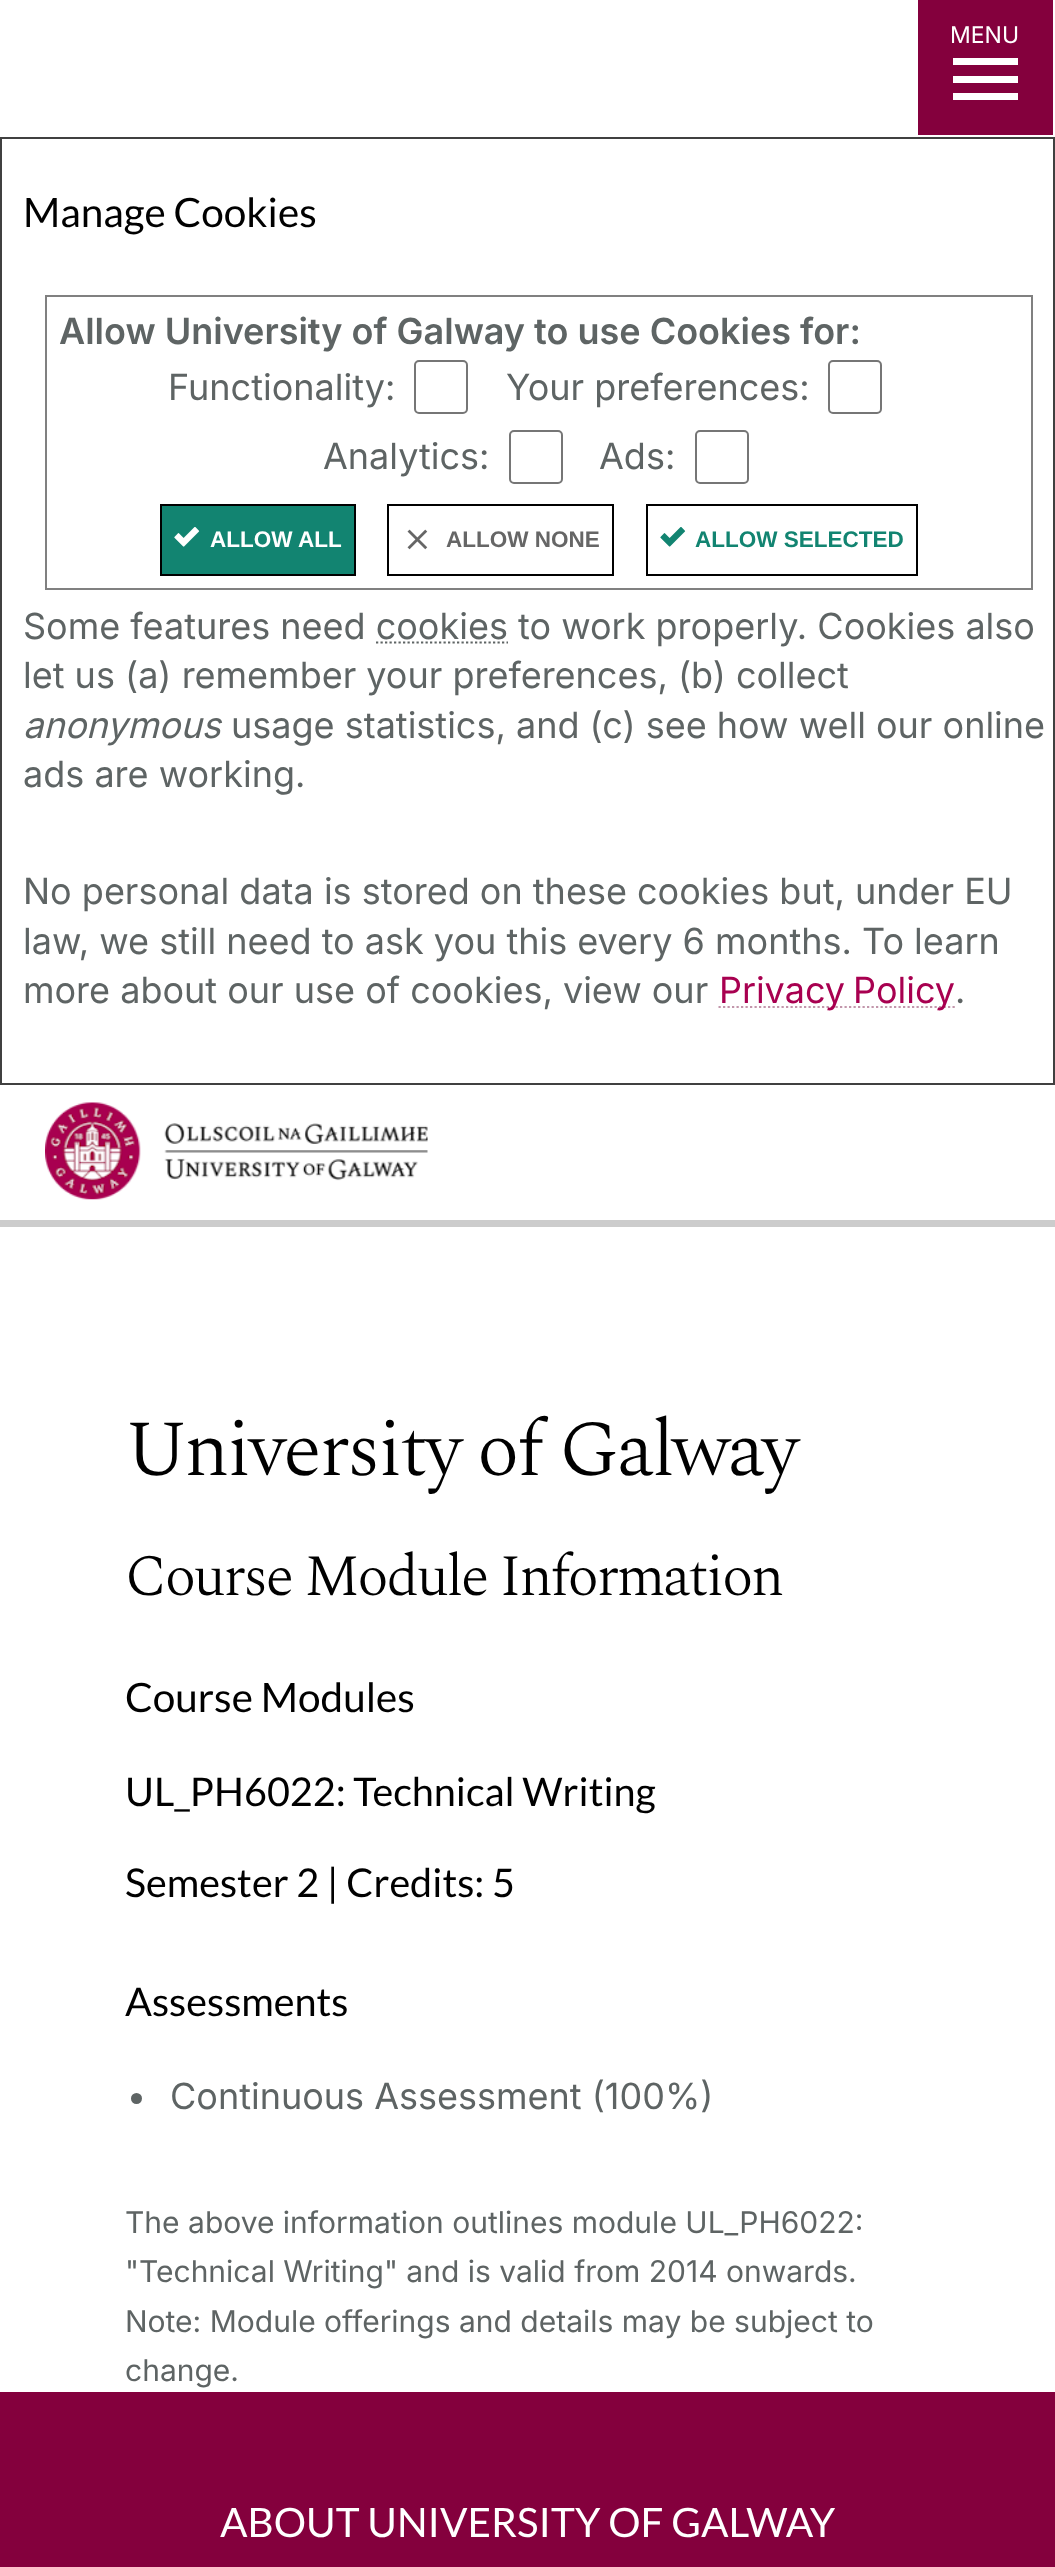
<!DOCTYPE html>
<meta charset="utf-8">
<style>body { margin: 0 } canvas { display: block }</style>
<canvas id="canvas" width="1055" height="2567"></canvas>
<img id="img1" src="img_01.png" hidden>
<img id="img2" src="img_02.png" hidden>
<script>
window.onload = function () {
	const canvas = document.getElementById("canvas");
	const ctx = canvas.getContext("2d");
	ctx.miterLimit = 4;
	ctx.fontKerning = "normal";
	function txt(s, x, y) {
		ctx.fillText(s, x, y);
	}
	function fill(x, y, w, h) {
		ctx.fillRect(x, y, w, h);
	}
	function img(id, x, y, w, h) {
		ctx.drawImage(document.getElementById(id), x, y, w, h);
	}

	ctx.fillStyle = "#FFFFFF";
	fill(0, 0, 1055, 2567);
	ctx.fillStyle = "#84003D";
	fill(918, 0, 135, 135);
	ctx.fillStyle = "#FFFFFF";
	ctx.beginPath();
	ctx.moveTo(953, 100);
	ctx.lineTo(1018, 100);
	ctx.lineTo(1018, 93);
	ctx.lineTo(953, 93);
	ctx.closePath();
	ctx.moveTo(953, 83);
	ctx.lineTo(1018, 83);
	ctx.lineTo(1018, 76);
	ctx.lineTo(953, 76);
	ctx.closePath();
	ctx.moveTo(953, 58);
	ctx.lineTo(953, 65);
	ctx.lineTo(1018, 65);
	ctx.lineTo(1018, 58);
	ctx.closePath();
	ctx.fill();
	ctx.strokeStyle = "#404040";
	ctx.lineWidth = 2;
	ctx.strokeRect(1, 138, 1053, 946);
	ctx.strokeStyle = "#808080";
	ctx.strokeRect(46, 296, 986, 293);
	ctx.beginPath();
	ctx.roundRect(415, 361, 52, 52, 4);
	ctx.strokeStyle = "#767676";
	ctx.stroke();
	ctx.beginPath();
	ctx.roundRect(829, 361, 52, 52, 4);
	ctx.stroke();
	ctx.beginPath();
	ctx.roundRect(510, 431, 52, 52, 4);
	ctx.stroke();
	ctx.beginPath();
	ctx.roundRect(696, 431, 52, 52, 4);
	ctx.stroke();
	ctx.fillStyle = "#128471";
	ctx.beginPath();
	ctx.rect(161, 505, 194, 70);
	ctx.fill();
	ctx.strokeStyle = "#000000";
	ctx.stroke();
	ctx.strokeRect(388, 505, 225, 70);
	img("img1", 407, 529, 21, 21);
	ctx.strokeRect(647, 505, 270, 70);
	ctx.beginPath();
	ctx.moveTo(376, 642.5);
	ctx.lineTo(508, 642.5);
	ctx.strokeStyle = "#5E6464";
	ctx.lineWidth = 2.2;
	ctx.setLineDash([2.25, 2.25]);
	ctx.stroke();
	ctx.beginPath();
	ctx.moveTo(718.5, 1007);
	ctx.lineTo(955, 1007);
	ctx.strokeStyle = "#C296AB";
	ctx.stroke();
	img("img2", 45, 1102, 383, 98);
	ctx.fillStyle = "#CCCCCC";
	fill(0, 1220, 1055, 7);
	ctx.fillStyle = "#5E6464";
	ctx.beginPath();
	ctx.arc(136.5, 2098.5, 5.5, 0, Math.PI * 2);
	ctx.fill();
	ctx.fillStyle = "#84003D";
	fill(0, 2392, 1055, 175);
	ctx.font = "23px Inter";
	ctx.fillStyle = "#FFFFFF";
	txt("MENU", 950, 43);
	ctx.font = "40.5px Lato";
	ctx.fillStyle = "#000000";
	txt("Manage Cookies", 23, 227);
	ctx.font = "600 36px Inter";
	ctx.fillStyle = "#5E6464";
	txt("Allow University of Galway to use Cookies for:", 59, 344);
	ctx.font = "36px Inter";
	txt("Functionality:", 168, 400);
	txt("Your preferences:", 506, 400);
	txt("Analytics:", 323, 469);
	txt("Ads:", 599, 469);
	ctx.font = "34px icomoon";
	ctx.fillStyle = "#FFFFFF";
	txt("✓", 174, 554);
	ctx.font = "bold 22.5px Liberation Sans";
	txt("ALLOW ALL", 210, 547);
	ctx.fillStyle = "#666666";
	txt("ALLOW NONE", 446, 547);
	ctx.font = "34px icomoon";
	ctx.fillStyle = "#128471";
	txt("✓", 660, 554);
	ctx.font = "bold 22.5px Liberation Sans";
	txt("ALLOW SELECTED", 695, 547);
	ctx.font = "36px Inter";
	ctx.fillStyle = "#5E6464";
	txt("Some features need cookies to work properly. Cookies also", 23, 639);
	txt("let us (a) remember your preferences, (b) collect", 23, 688);
	ctx.font = "italic 36px Inter";
	txt("anonymous", 23, 738);
	ctx.font = "36px Inter";
	txt("usage statistics, and (c) see how well our online", 231, 738);
	txt("ads are working.", 23, 787);
	txt("No personal data is stored on these cookies but, under EU", 23, 904);
	txt("law, we still need to ask you this every 6 months. To learn", 23, 954);
	txt("more about our use of cookies, view our", 23, 1003);
	ctx.wordSpacing = "-2px";
	ctx.fillStyle = "#A80050";
	txt("Privacy Policy", 719, 1003);
	ctx.wordSpacing = "0px";
	ctx.fillStyle = "#5E6464";
	txt(".", 955, 1003);
	ctx.letterSpacing = "-2.25px";
	ctx.font = "300 79.25px Spectral";
	ctx.fillStyle = "#000000";
	txt("University of Galway", 125, 1475);
	ctx.font = "300 58.5px Spectral";
	txt("Course Module Information", 125, 1595);
	ctx.letterSpacing = "0px";
	ctx.font = "40.5px Lato";
	txt("Course Modules", 125, 1712);
	ctx.font = "39.6px Lato";
	txt("UL_PH6022: Technical Writing", 125, 1806);
	txt("Semester 2 | Credits: 5", 125, 1897);
	txt("Assessments", 125, 2016);
	ctx.font = "36px Inter";
	ctx.fillStyle = "#5E6464";
	txt("Continuous Assessment (100%)", 170, 2109);
	ctx.font = "30px Inter";
	txt("The above information outlines module UL_PH6022:", 125, 2233);
	txt("\"Technical Writing\" and is valid from 2014 onwards.", 125, 2282);
	txt("Note: Module offerings and details may be subject to", 125, 2332);
	txt("change.", 125, 2381);
	ctx.font = "40.5px Lato";
	ctx.fillStyle = "#FFFFFF";
	txt("ABOUT UNIVERSITY OF GALWAY", 220, 2537);
};
</script>
